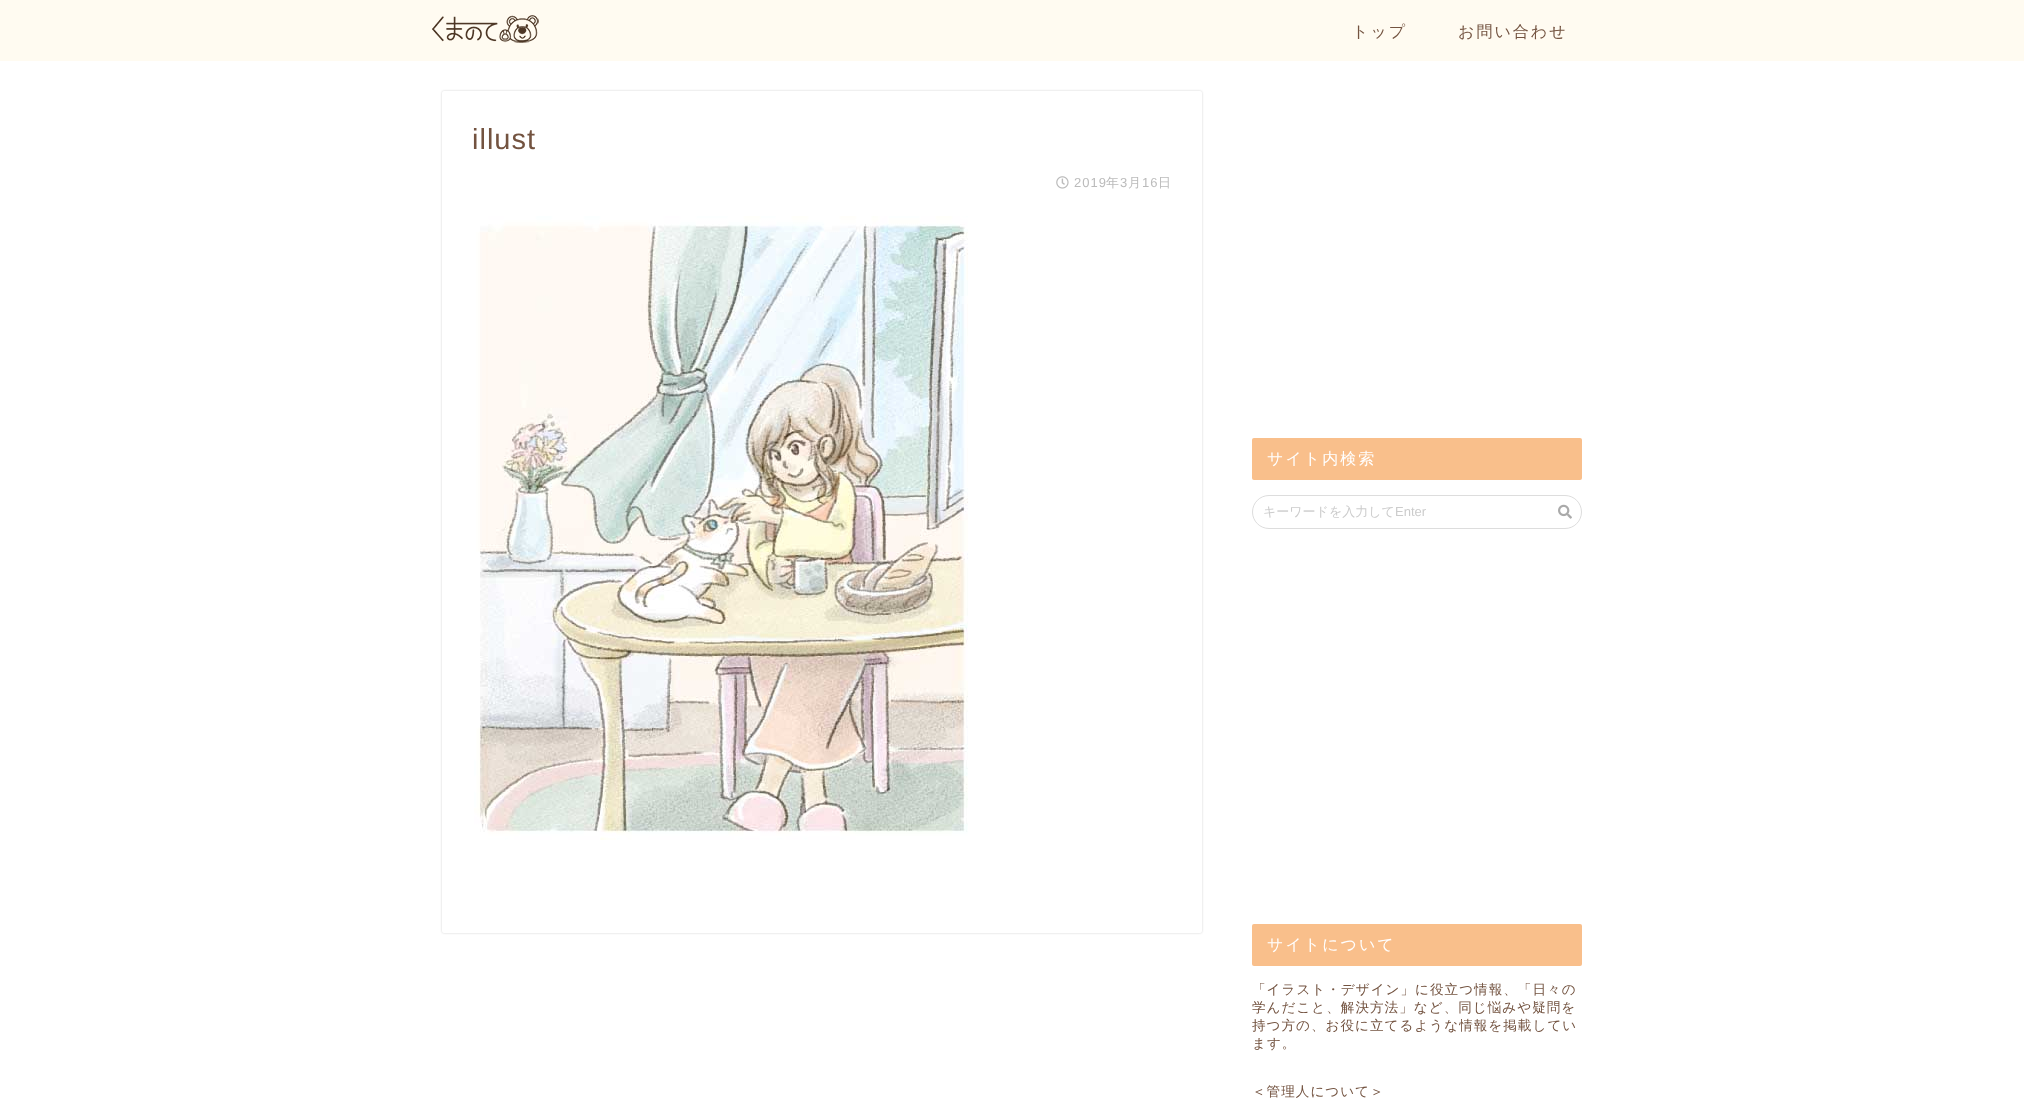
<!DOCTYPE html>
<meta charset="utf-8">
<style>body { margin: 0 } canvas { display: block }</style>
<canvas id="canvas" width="2024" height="1101"></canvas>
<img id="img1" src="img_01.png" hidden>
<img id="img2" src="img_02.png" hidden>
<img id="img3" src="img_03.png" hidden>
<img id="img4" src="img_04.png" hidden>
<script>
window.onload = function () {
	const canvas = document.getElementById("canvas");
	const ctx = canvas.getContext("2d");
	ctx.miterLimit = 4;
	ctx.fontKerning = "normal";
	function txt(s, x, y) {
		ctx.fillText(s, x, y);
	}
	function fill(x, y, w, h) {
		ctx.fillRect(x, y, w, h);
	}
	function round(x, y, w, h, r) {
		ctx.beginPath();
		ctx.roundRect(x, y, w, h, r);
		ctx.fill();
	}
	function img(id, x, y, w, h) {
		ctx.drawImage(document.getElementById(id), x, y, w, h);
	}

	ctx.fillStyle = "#FFFFFF";
	fill(0, 0, 2024, 1101);
	ctx.fillStyle = "#FFFBF1";
	fill(0, 0, 2024, 61);
	img("img1", 432, 15, 107, 28);
	ctx.fillStyle = "rgba(0, 0, 0, 0.18)";
	ctx.filter = "blur(1px)";
	ctx.beginPath();
	ctx.roundRect(442, 91, 760, 842, 2);
	ctx.fill();
	ctx.filter = "none";
	ctx.fillStyle = "#FFFFFF";
	round(442, 91, 760, 842, 2);
	img("img2", 1056, 176, 13, 13);
	img("img3", 474, 216, 494, 624);
	ctx.fillStyle = "#F9BF8B";
	round(1252, 438, 330, 42, 2);
	ctx.beginPath();
	ctx.roundRect(1252.5, 495.5, 329, 33, 16.5);
	ctx.strokeStyle = "#DDDDDD";
	ctx.stroke();
	img("img4", 1558, 504, 14, 15);
	round(1252, 924, 330, 42, 2);
	ctx.letterSpacing = "2px";
	ctx.font = "500 16px WenQuanYi Zen Hei";
	ctx.fillStyle = "#735340";
	txt("トップ", 1352, 37);
	txt("お問い合わせ", 1458, 37);
	ctx.letterSpacing = "1px";
	ctx.font = "29px Liberation Sans";
	txt("illust", 472, 149);
	ctx.font = "13px Liberation Sans";
	ctx.fillStyle = "#BBBBBB";
	txt("2019", 1074, 187);
	ctx.font = "500 13px WenQuanYi Zen Hei";
	txt("年", 1106, 187);
	ctx.font = "13px Liberation Sans";
	txt("3", 1120, 187);
	ctx.font = "500 13px WenQuanYi Zen Hei";
	txt("月", 1128, 187);
	ctx.font = "13px Liberation Sans";
	txt("16", 1142, 187);
	ctx.font = "500 13px WenQuanYi Zen Hei";
	txt("日", 1158, 187);
	ctx.letterSpacing = "2px";
	ctx.font = "500 16px WenQuanYi Zen Hei";
	ctx.fillStyle = "#FFFFFF";
	txt("サイト内検索", 1267, 464);
	ctx.letterSpacing = "0px";
	ctx.font = "500 13px WenQuanYi Zen Hei";
	ctx.fillStyle = "#CCCCCC";
	txt("キーワードを入力して", 1263, 516);
	ctx.font = "13px Liberation Sans";
	txt("Enter", 1395, 516);
	ctx.letterSpacing = "2px";
	ctx.font = "500 16px WenQuanYi Zen Hei";
	ctx.fillStyle = "#FFFFFF";
	txt("サイトについて", 1267, 950);
	ctx.letterSpacing = "1px";
	ctx.font = "500 13.6px WenQuanYi Zen Hei";
	ctx.fillStyle = "#735340";
	txt("「イラスト・デザイン」に役立つ情報、「日々の", 1252, 994);
	txt("学んだこと、解決方法」など、同じ悩みや疑問を", 1252, 1012);
	txt("持つ方の、お役に立てるような情報を掲載してい", 1252, 1030);
	txt("ます。", 1252, 1048);
	txt("＜管理人について＞", 1252, 1096);
};
</script>
